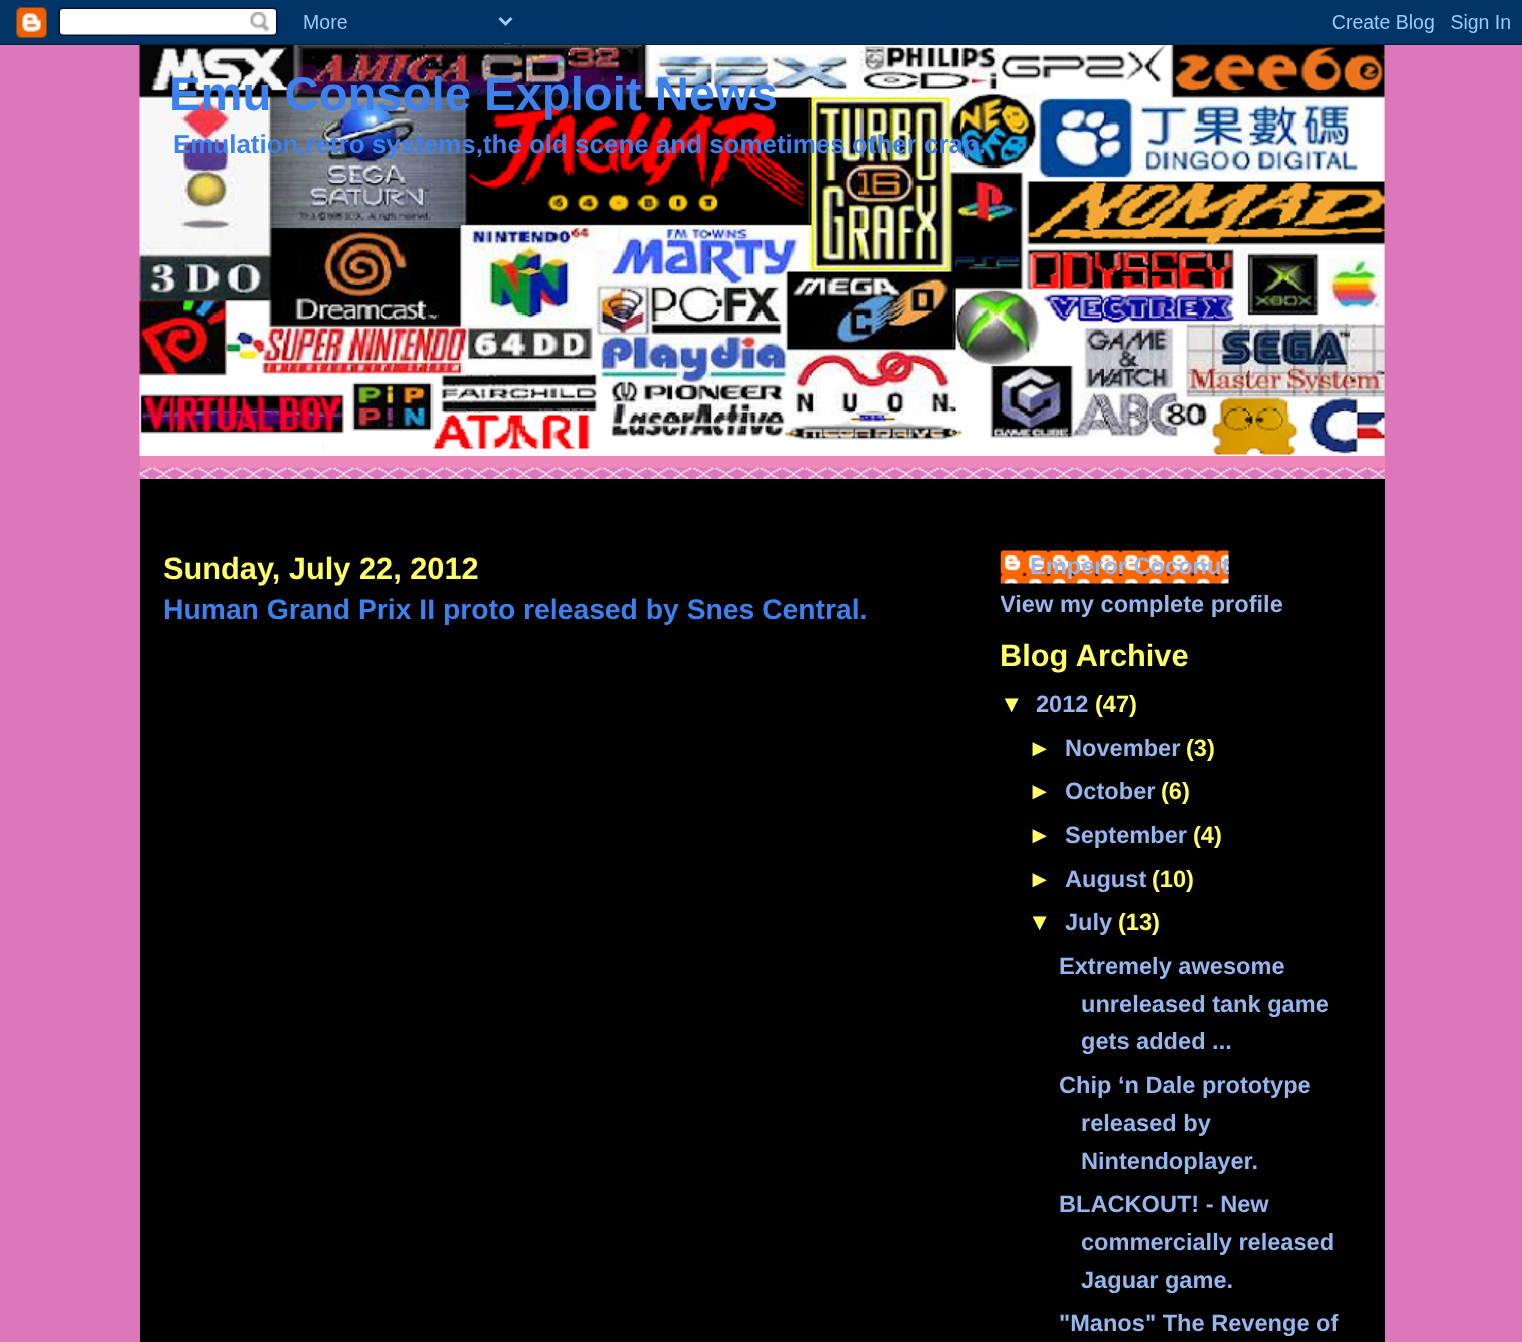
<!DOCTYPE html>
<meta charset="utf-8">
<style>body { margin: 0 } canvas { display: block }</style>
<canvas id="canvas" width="1522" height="1342"></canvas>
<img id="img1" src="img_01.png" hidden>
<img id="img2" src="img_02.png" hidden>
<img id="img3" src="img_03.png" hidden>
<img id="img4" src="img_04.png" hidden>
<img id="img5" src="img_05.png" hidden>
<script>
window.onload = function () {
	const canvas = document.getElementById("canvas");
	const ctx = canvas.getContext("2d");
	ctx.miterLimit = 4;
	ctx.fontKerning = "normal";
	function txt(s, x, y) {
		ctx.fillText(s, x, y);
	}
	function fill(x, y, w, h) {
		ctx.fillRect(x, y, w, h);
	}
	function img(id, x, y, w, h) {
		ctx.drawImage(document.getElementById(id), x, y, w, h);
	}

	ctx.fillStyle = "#DD77BB";
	fill(0, 0, 1522, 1342);
	img("img1", 225, 43, 1073, 1);
	img("img2", 0, 0, 1522, 45);
	ctx.fillStyle = "#000000";
	fill(140, 479, 1245, 863);
	ctx.fillStyle = "#EE88BB";
	fill(140, 45, 1245, 434);
	img("img3", 139, 466, 1246, 13);
	img("img4", 139, 45, 1246, 411);
	img("img5", 1000, 550, 229, 34);
	ctx.font = "bold 47.25px Liberation Sans";
	ctx.fillStyle = "#3D81EE";
	txt("Emu Console Exploit News", 169, 110);
	ctx.font = "bold 25.95px Liberation Sans";
	txt("Emulation,retro systems,the old scene and sometimes other crap.", 173, 153);
	ctx.font = "bold 30.75px Liberation Sans";
	ctx.fillStyle = "#FFFF66";
	txt("Sunday, July 22, 2012", 163, 579);
	ctx.font = "bold 28.3px Liberation Sans";
	ctx.fillStyle = "#3D81EE";
	txt("Human Grand Prix II proto released by Snes Central.", 163, 619);
	ctx.font = "bold 23.6px Liberation Sans";
	ctx.fillStyle = "#95B7EE";
	txt("Emperor Coconut", 1030, 574);
	ctx.save();
	ctx.beginPath();
	ctx.rect(1001, 533, 360, 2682);
	ctx.clip();
	txt("View my complete profile", 1000, 612);
	ctx.restore();
	ctx.font = "bold 30.75px Liberation Sans";
	ctx.fillStyle = "#FFFF66";
	txt("Blog Archive", 1000, 666);
	ctx.font = "bold 23.6px Liberation Sans";
	txt("▼", 1000, 712);
	ctx.fillStyle = "#95B7EE";
	txt("2012", 1036, 712);
	ctx.fillStyle = "#FFFF66";
	txt("(47)", 1095, 712);
	txt("►", 1028, 756);
	ctx.fillStyle = "#95B7EE";
	txt("November", 1065, 756);
	ctx.fillStyle = "#FFFF66";
	txt("(3)", 1186, 756);
	txt("►", 1028, 799);
	ctx.fillStyle = "#95B7EE";
	txt("October", 1065, 799);
	ctx.fillStyle = "#FFFF66";
	txt("(6)", 1161, 799);
	txt("►", 1028, 843);
	ctx.fillStyle = "#95B7EE";
	txt("September", 1065, 843);
	ctx.fillStyle = "#FFFF66";
	txt("(4)", 1193, 843);
	txt("►", 1028, 887);
	ctx.fillStyle = "#95B7EE";
	txt("August", 1065, 887);
	ctx.fillStyle = "#FFFF66";
	txt("(10)", 1152, 887);
	txt("▼", 1028, 930);
	ctx.fillStyle = "#95B7EE";
	txt("July", 1065, 930);
	ctx.fillStyle = "#FFFF66";
	txt("(13)", 1118, 930);
	ctx.fillStyle = "#95B7EE";
	txt("Extremely awesome", 1059, 974);
	txt("unreleased tank game", 1081, 1012);
	txt("gets added ...", 1081, 1049);
	txt("Chip ‘n Dale prototype", 1059, 1093);
	txt("released by", 1081, 1131);
	txt("Nintendoplayer.", 1081, 1169);
	txt("BLACKOUT! - New", 1059, 1212);
	txt("commercially released", 1081, 1250);
	txt("Jaguar game.", 1081, 1288);
	txt("\"Manos\" The Revenge of", 1059, 1331);
};
</script>
